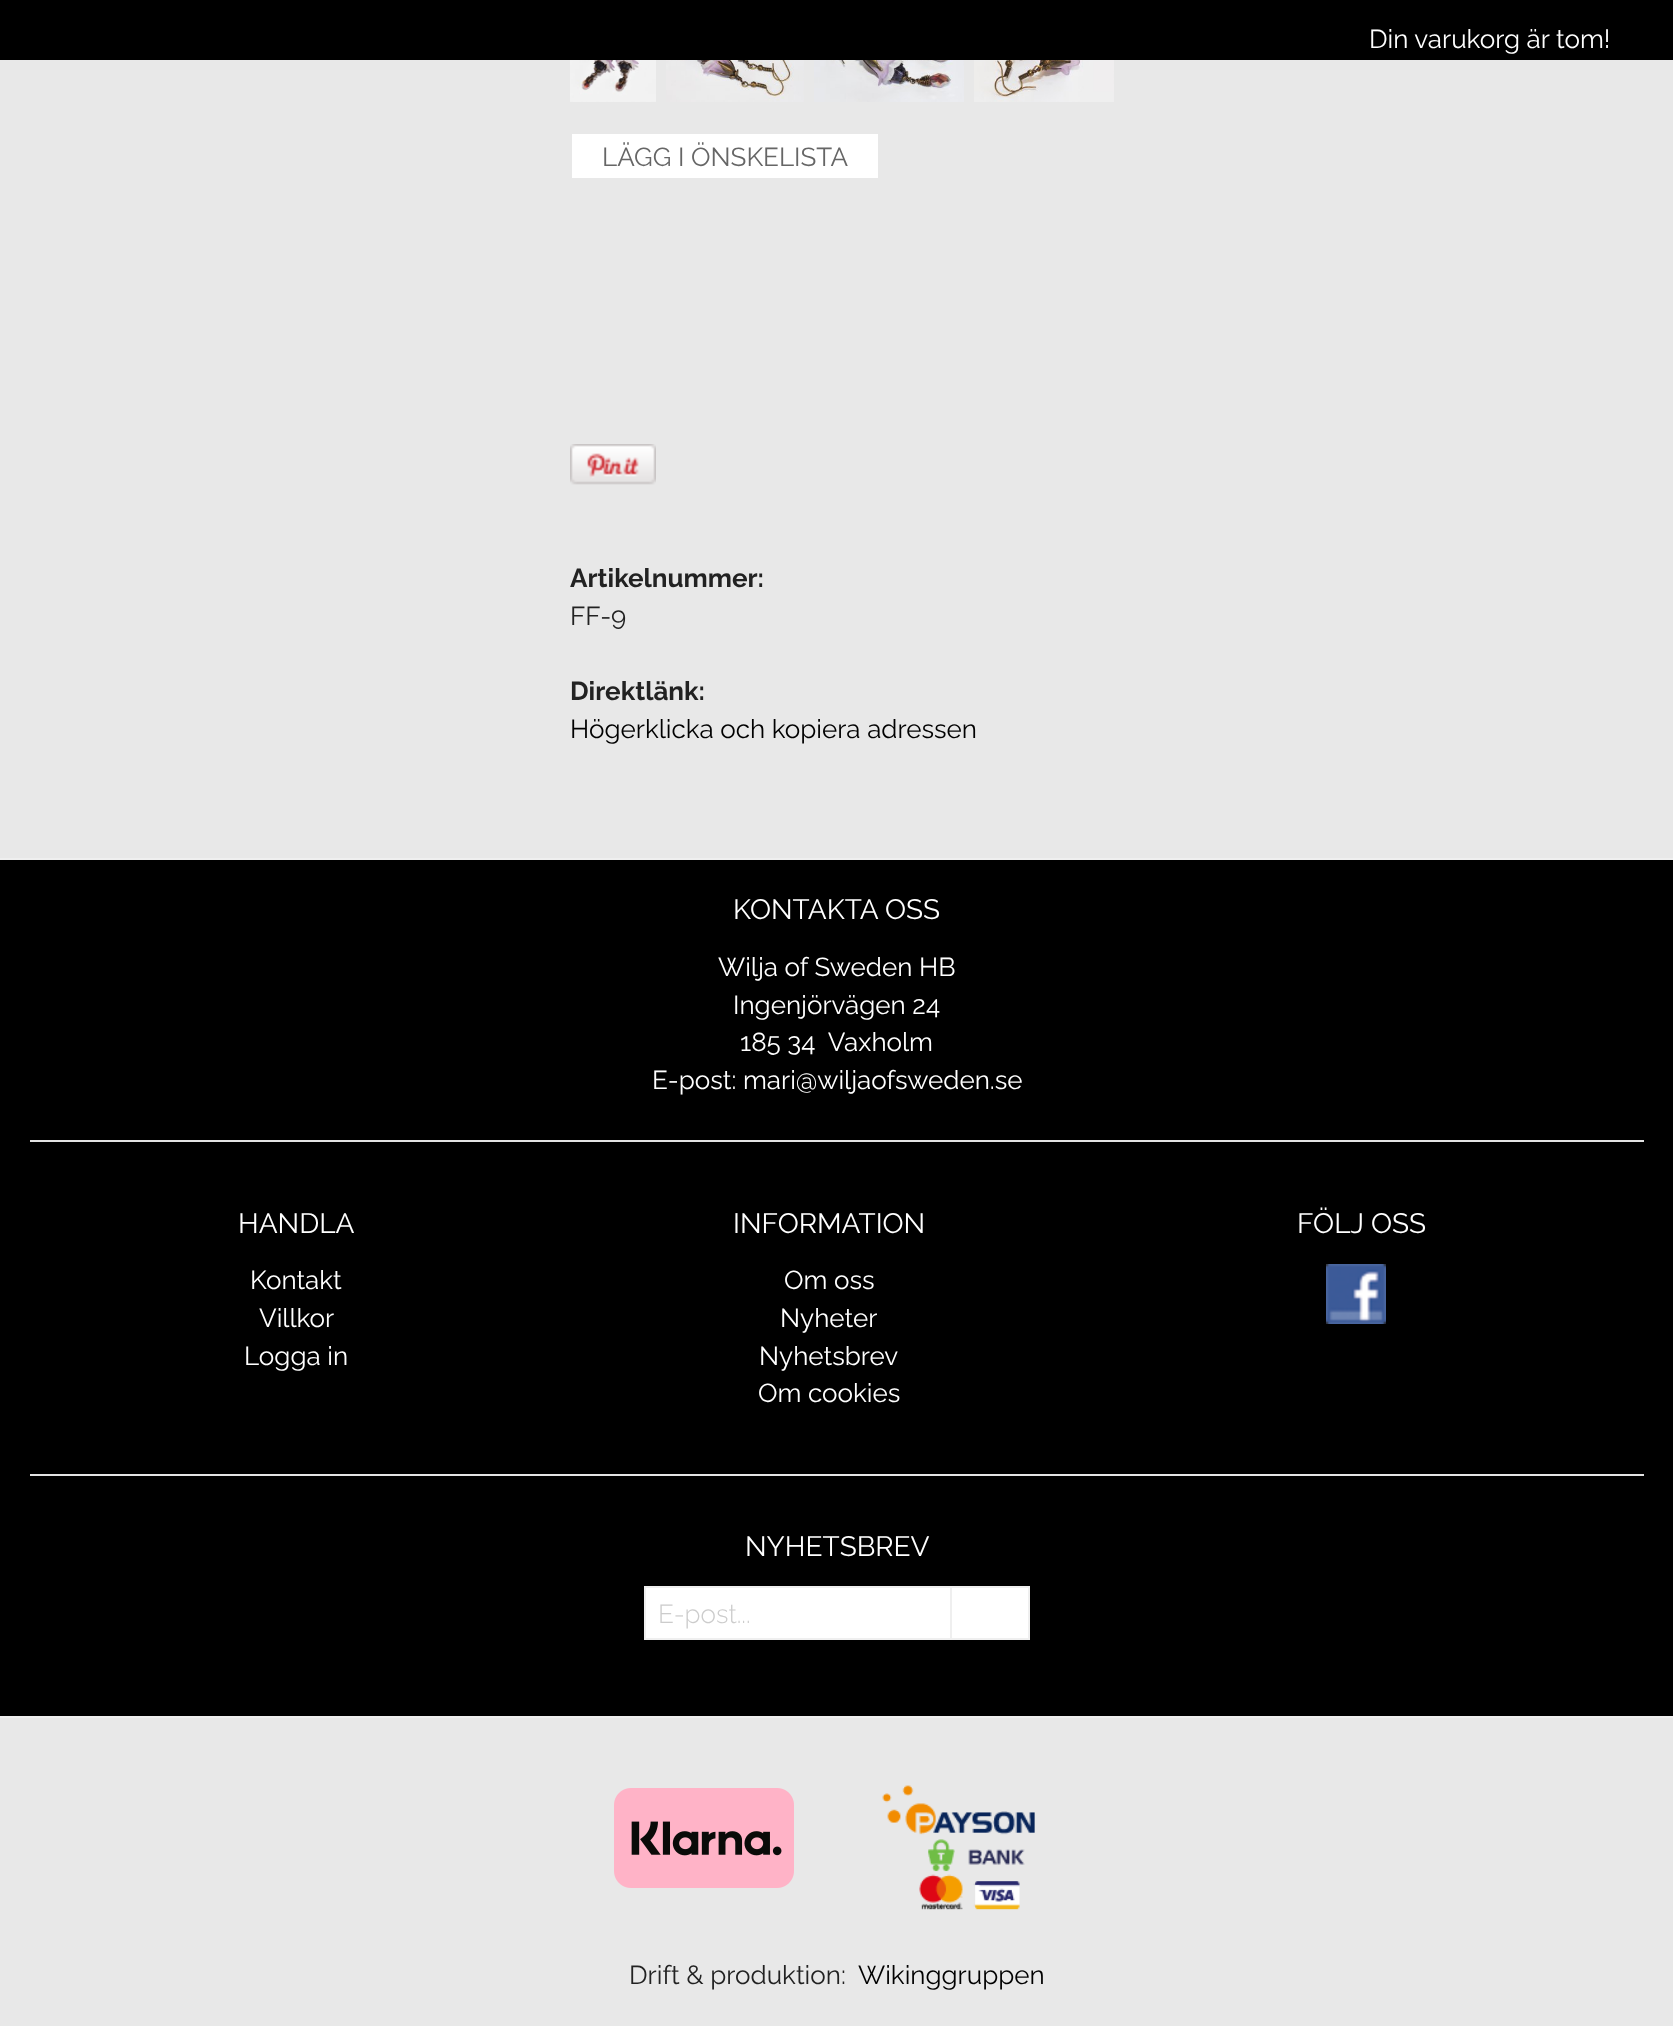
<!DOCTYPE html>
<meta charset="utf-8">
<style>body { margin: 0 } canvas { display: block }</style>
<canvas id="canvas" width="1673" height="2026"></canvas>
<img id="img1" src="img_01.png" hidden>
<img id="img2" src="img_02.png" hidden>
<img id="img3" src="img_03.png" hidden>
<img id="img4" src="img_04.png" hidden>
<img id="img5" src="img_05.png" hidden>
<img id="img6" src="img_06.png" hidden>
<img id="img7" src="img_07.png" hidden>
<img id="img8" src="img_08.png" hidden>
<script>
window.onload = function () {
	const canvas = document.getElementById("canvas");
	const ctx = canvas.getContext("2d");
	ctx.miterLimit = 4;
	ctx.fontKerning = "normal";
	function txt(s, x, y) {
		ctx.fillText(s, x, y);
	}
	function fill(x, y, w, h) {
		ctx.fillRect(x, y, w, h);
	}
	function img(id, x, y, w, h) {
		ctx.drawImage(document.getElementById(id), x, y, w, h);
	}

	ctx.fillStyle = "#E8E8E8";
	fill(0, 0, 1673, 2026);
	ctx.fillStyle = "#000000";
	fill(0, 0, 1673, 60);
	img("img1", 570, 60, 86, 42);
	img("img2", 666, 60, 138, 42);
	img("img3", 814, 60, 150, 42);
	img("img4", 974, 60, 140, 42);
	ctx.fillStyle = "#FFFFFF";
	fill(572, 134, 306, 44);
	img("img5", 570, 444, 86, 41);
	ctx.fillStyle = "#000000";
	fill(0, 860, 1673, 856);
	ctx.fillStyle = "#EFEFEF";
	fill(0, 858, 1673, 2);
	fill(0, 1716, 1673, 2);
	ctx.fillStyle = "#E3E3E3";
	fill(30, 1140, 1614, 2);
	img("img6", 1326, 1264, 60, 60);
	fill(30, 1474, 1614, 2);
	ctx.fillStyle = "#FFFFFF";
	ctx.beginPath();
	ctx.rect(951, 1587, 78, 52);
	ctx.fill();
	ctx.strokeStyle = "#EFEFEF";
	ctx.lineWidth = 2;
	ctx.stroke();
	ctx.beginPath();
	ctx.rect(645, 1587, 306, 52);
	ctx.fill();
	ctx.stroke();
	img("img7", 614, 1788, 180, 100);
	img("img8", 882, 1785, 153, 125);
	ctx.font = "26px Raleway";
	txt("Din varukorg är tom!", 1369, 48);
	ctx.fillStyle = "#666666";
	txt("LÄGG I ÖNSKELISTA", 602, 166);
	ctx.font = "bold 26px Raleway";
	ctx.fillStyle = "#222222";
	txt("Artikelnummer:", 570, 587);
	ctx.font = "26px Raleway";
	txt("FF-9", 570, 625);
	ctx.font = "bold 26px Raleway";
	txt("Direktlänk:", 570, 700);
	ctx.font = "26px Raleway";
	ctx.fillStyle = "#000000";
	txt("Högerklicka och kopiera adressen", 570, 738);
	ctx.font = "28px Raleway";
	ctx.fillStyle = "#FFFFFF";
	txt("KONTAKTA OSS", 733, 919);
	ctx.font = "26px Raleway";
	txt("Wilja of Sweden HB", 718, 976);
	txt("Ingenjörvägen 24", 733, 1014);
	txt("185 34  Vaxholm", 740, 1051);
	txt("E-post: mari@wiljaofsweden.se", 652, 1089);
	ctx.font = "28px Raleway";
	txt("HANDLA", 238, 1233);
	ctx.font = "26px Raleway";
	txt("Kontakt", 250, 1289);
	txt("Villkor", 259, 1327);
	txt("Logga in", 244, 1365);
	ctx.font = "28px Raleway";
	txt("INFORMATION", 733, 1233);
	ctx.font = "26px Raleway";
	txt("Om oss", 784, 1289);
	txt("Nyheter", 780, 1327);
	txt("Nyhetsbrev", 759, 1365);
	txt("Om cookies", 758, 1402);
	ctx.font = "28px Raleway";
	txt("FÖLJ OSS", 1297, 1233);
	txt("NYHETSBREV", 745, 1556);
	ctx.font = "300 26px Raleway";
	ctx.fillStyle = "#CCCCCC";
	txt("E-post...", 658, 1623);
	ctx.font = "26px Raleway";
	ctx.fillStyle = "#222222";
	txt("Drift & produktion:", 629, 1984);
	ctx.fillStyle = "#000000";
	txt("Wikinggruppen", 858, 1984);
};
</script>
